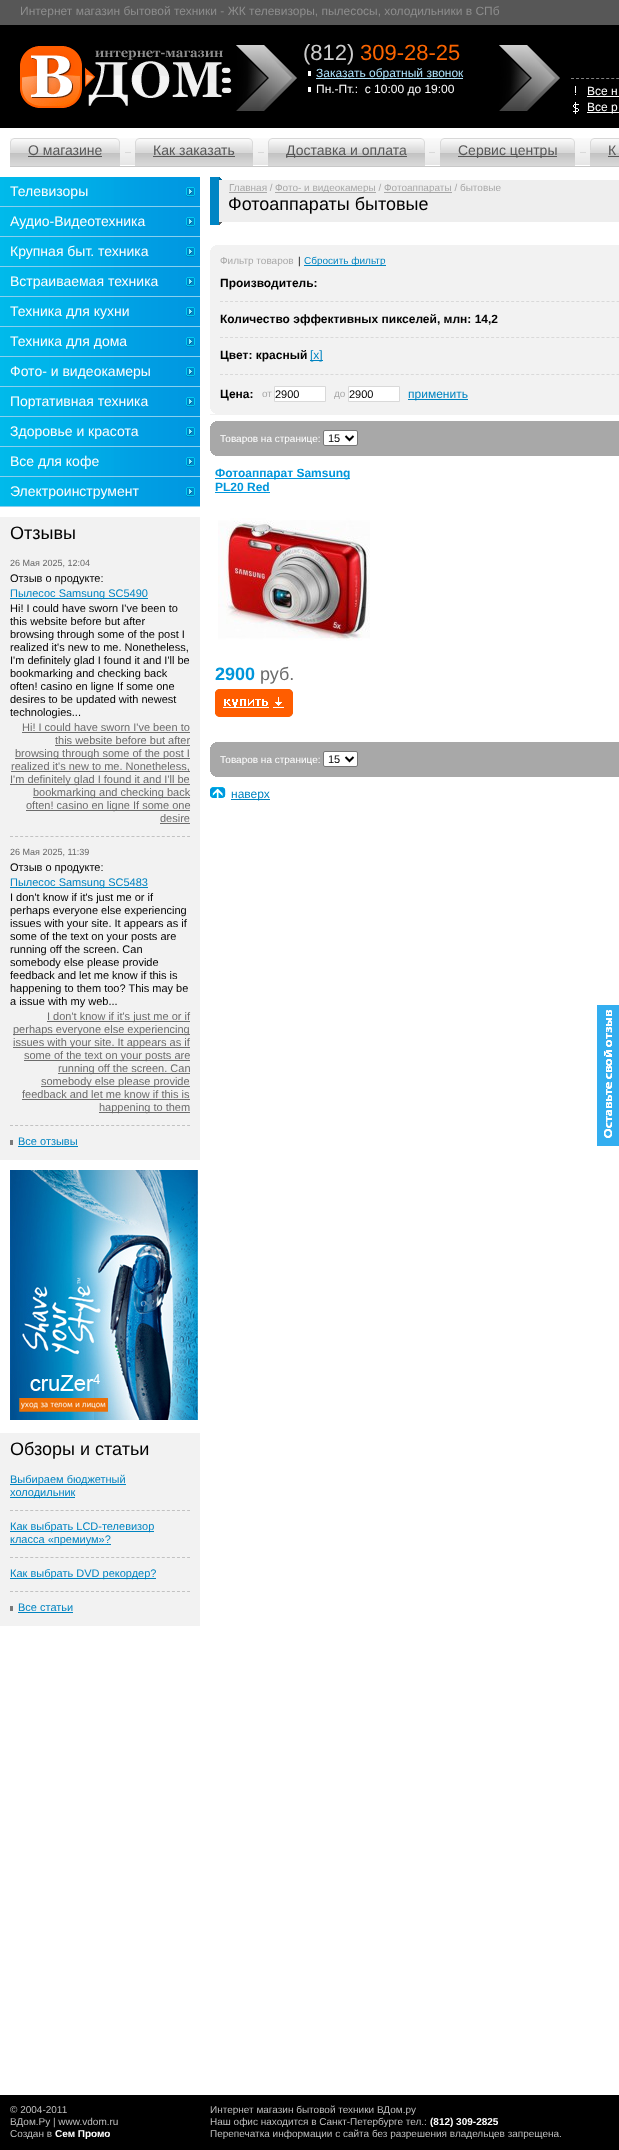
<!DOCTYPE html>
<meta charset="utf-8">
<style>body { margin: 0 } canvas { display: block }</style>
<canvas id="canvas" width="619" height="2150"></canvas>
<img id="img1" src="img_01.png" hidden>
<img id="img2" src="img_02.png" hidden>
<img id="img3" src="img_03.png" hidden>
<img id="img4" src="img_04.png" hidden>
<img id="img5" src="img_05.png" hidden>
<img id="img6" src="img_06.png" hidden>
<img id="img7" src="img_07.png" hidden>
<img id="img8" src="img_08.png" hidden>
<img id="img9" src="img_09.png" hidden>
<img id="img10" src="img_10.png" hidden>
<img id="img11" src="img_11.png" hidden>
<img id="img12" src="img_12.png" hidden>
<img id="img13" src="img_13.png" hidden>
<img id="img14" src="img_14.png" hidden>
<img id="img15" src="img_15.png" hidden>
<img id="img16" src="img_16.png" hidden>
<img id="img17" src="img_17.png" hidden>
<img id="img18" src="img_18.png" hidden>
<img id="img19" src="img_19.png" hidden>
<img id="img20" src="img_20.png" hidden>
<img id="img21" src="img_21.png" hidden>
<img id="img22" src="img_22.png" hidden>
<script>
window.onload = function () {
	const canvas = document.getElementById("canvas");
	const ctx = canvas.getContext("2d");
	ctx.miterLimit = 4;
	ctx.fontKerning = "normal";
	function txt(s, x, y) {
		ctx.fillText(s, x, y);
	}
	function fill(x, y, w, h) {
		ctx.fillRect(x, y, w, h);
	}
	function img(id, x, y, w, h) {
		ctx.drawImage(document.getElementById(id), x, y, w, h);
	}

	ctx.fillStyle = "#FFFFFF";
	fill(0, 0, 619, 2150);
	ctx.fillStyle = "#000000";
	fill(0, 25, 619, 103);
	ctx.fillStyle = "#575757";
	fill(0, 0, 619, 25);
	img("img1", 236, 45, 61, 66);
	img("img2", 20, 46, 212, 62);
	img("img1", 499, 45, 61, 66);
	ctx.fillStyle = "#FFFFFF";
	fill(308, 71, 3, 5);
	ctx.fillStyle = "#AEE3FC";
	fill(316, 78, 147, 1);
	ctx.fillStyle = "#FFFFFF";
	fill(308, 87, 3, 5);
	ctx.beginPath();
	ctx.moveTo(571, 78.5);
	ctx.lineTo(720, 78.5);
	ctx.strokeStyle = "#808080";
	ctx.setLineDash([3, 2.03]);
	ctx.stroke();
	img("img3", 575, 86, 1, 9);
	fill(587, 96, 32, 1);
	img("img4", 573, 102, 6, 12);
	fill(587, 112, 32, 1);
	img("img5", 120, 138, 470, 27);
	ctx.fillStyle = "#C8C8C8";
	fill(10, 166, 609, 1);
	img("img6", 10, 138, 110, 28);
	img("img7", 10, 138, 4, 12);
	img("img8", 116, 138, 4, 12);
	ctx.fillStyle = "#575757";
	fill(28, 156, 74, 1);
	ctx.fillStyle = "#D9D9D9";
	fill(125, 152, 6, 1);
	img("img9", 135, 138, 118, 28);
	img("img7", 135, 138, 4, 12);
	img("img8", 249, 138, 4, 12);
	ctx.fillStyle = "#575757";
	fill(153, 156, 82, 1);
	ctx.fillStyle = "#D9D9D9";
	fill(258, 152, 6, 1);
	img("img10", 268, 138, 157, 28);
	img("img7", 268, 138, 4, 12);
	img("img8", 421, 138, 4, 12);
	ctx.fillStyle = "#575757";
	fill(286, 156, 121, 1);
	ctx.fillStyle = "#D9D9D9";
	fill(429, 152, 6, 1);
	img("img11", 440, 138, 135, 28);
	img("img7", 440, 138, 4, 12);
	img("img8", 571, 138, 4, 12);
	ctx.fillStyle = "#575757";
	fill(458, 156, 99, 1);
	ctx.fillStyle = "#D9D9D9";
	fill(580, 152, 6, 1);
	img("img12", 590, 138, 29, 28);
	img("img7", 590, 138, 4, 12);
	ctx.fillStyle = "#575757";
	fill(608, 156, 11, 1);
	img("img13", 0, 177, 200, 29);
	ctx.fillStyle = "#88CEEE";
	fill(0, 206, 200, 1);
	img("img13", 0, 207, 200, 29);
	fill(0, 236, 200, 1);
	img("img13", 0, 237, 200, 29);
	fill(0, 266, 200, 1);
	img("img13", 0, 267, 200, 29);
	fill(0, 296, 200, 1);
	img("img13", 0, 297, 200, 29);
	fill(0, 326, 200, 1);
	img("img13", 0, 327, 200, 29);
	fill(0, 356, 200, 1);
	img("img13", 0, 357, 200, 29);
	fill(0, 386, 200, 1);
	img("img13", 0, 387, 200, 29);
	fill(0, 416, 200, 1);
	img("img13", 0, 417, 200, 29);
	fill(0, 446, 200, 1);
	img("img13", 0, 447, 200, 29);
	fill(0, 476, 200, 1);
	img("img13", 0, 477, 200, 29);
	fill(0, 506, 200, 1);
	ctx.fillStyle = "#F2F2F2";
	fill(0, 517, 200, 643);
	ctx.beginPath();
	ctx.moveTo(10, 836.5);
	ctx.lineTo(190, 836.5);
	ctx.strokeStyle = "#C2C2C2";
	ctx.setLineDash([3, 2.06]);
	ctx.stroke();
	ctx.fillStyle = "#0084C1";
	fill(10, 598, 138, 1);
	ctx.fillStyle = "#6C6C6C";
	fill(22, 732, 168, 1);
	fill(55, 745, 135, 1);
	fill(15, 758, 175, 1);
	fill(11, 771, 179, 1);
	fill(10, 784, 180, 1);
	fill(33, 797, 157, 1);
	fill(26, 810, 164, 1);
	fill(160, 823, 30, 1);
	ctx.beginPath();
	ctx.moveTo(10, 1125.5);
	ctx.lineTo(190, 1125.5);
	ctx.stroke();
	ctx.fillStyle = "#0084C1";
	fill(10, 887, 138, 1);
	ctx.fillStyle = "#6C6C6C";
	fill(47, 1021, 143, 1);
	fill(13, 1034, 177, 1);
	fill(13, 1047, 177, 1);
	fill(24, 1060, 166, 1);
	fill(58, 1073, 132, 1);
	fill(41, 1086, 149, 1);
	fill(22, 1099, 168, 1);
	fill(99, 1112, 91, 1);
	ctx.fillStyle = "#7A7A7A";
	fill(10, 1140, 3, 5);
	ctx.fillStyle = "#0084C1";
	fill(18, 1146, 60, 1);
	img("img14", 10, 1170, 188, 250);
	ctx.fillStyle = "#F2F2F2";
	fill(0, 1433, 200, 193);
	ctx.beginPath();
	ctx.moveTo(10, 1510.5);
	ctx.lineTo(190, 1510.5);
	ctx.stroke();
	ctx.fillStyle = "#0084C1";
	fill(10, 1484, 116, 1);
	fill(10, 1497, 65, 1);
	ctx.beginPath();
	ctx.moveTo(10, 1557.5);
	ctx.lineTo(190, 1557.5);
	ctx.stroke();
	fill(10, 1531, 144, 1);
	fill(10, 1544, 101, 1);
	ctx.beginPath();
	ctx.moveTo(10, 1591.5);
	ctx.lineTo(190, 1591.5);
	ctx.stroke();
	fill(10, 1578, 146, 1);
	ctx.fillStyle = "#7A7A7A";
	fill(10, 1606, 3, 5);
	ctx.fillStyle = "#0084C1";
	fill(18, 1612, 55, 1);
	img("img15", 210, 177, 409, 48);
	img("img16", 219, 177, 400, 3);
	img("img17", 219, 222, 400, 3);
	ctx.fillStyle = "#A8A8A8";
	fill(229, 192, 38, 1);
	fill(275, 192, 101, 1);
	fill(384, 192, 68, 1);
	ctx.fillStyle = "#F2F2F2";
	fill(210, 250, 409, 165);
	fill(215, 245, 404, 1);
	fill(213, 246, 406, 1);
	fill(212, 247, 407, 1);
	fill(211, 248, 408, 2);
	ctx.fillStyle = "#0084C1";
	fill(304, 265, 82, 1);
	ctx.beginPath();
	ctx.moveTo(220, 301.5);
	ctx.lineTo(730, 301.5);
	ctx.strokeStyle = "#D9D9D9";
	ctx.setLineDash([3, 2.02]);
	ctx.stroke();
	ctx.beginPath();
	ctx.moveTo(220, 337.5);
	ctx.lineTo(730, 337.5);
	ctx.stroke();
	fill(310, 360, 13, 1);
	ctx.beginPath();
	ctx.moveTo(220, 374.5);
	ctx.lineTo(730, 374.5);
	ctx.stroke();
	ctx.fillStyle = "#FFFFFF";
	ctx.beginPath();
	ctx.rect(274.5, 386.5, 51, 15);
	ctx.fill();
	ctx.setLineDash([]);
	ctx.stroke();
	ctx.beginPath();
	ctx.rect(348.5, 386.5, 51, 15);
	ctx.fill();
	ctx.stroke();
	ctx.fillStyle = "#0084C1";
	fill(408, 399, 60, 1);
	ctx.fillStyle = "#FFFFFF";
	fill(210, 409, 5, 5);
	ctx.fillStyle = "#F2F2F2";
	fill(211, 409, 4, 2);
	fill(212, 411, 3, 1);
	fill(213, 412, 2, 1);
	ctx.fillStyle = "#A8A8A8";
	fill(210, 426, 409, 25);
	fill(215, 421, 404, 1);
	fill(213, 422, 406, 1);
	fill(212, 423, 407, 1);
	fill(211, 424, 408, 2);
	ctx.fillStyle = "#FFFFFF";
	ctx.beginPath();
	ctx.roundRect(323.5, 430.5, 34, 15, 1.5);
	ctx.fill();
	ctx.strokeStyle = "#767676";
	ctx.stroke();
	ctx.beginPath();
	ctx.moveTo(345.5, 436);
	ctx.lineTo(349.5, 440);
	ctx.lineTo(353.5, 436);
	ctx.strokeStyle = "#000000";
	ctx.lineWidth = 2;
	ctx.stroke();
	ctx.fillStyle = "#A8A8A8";
	fill(211, 451, 408, 2);
	fill(212, 453, 407, 1);
	fill(213, 454, 406, 1);
	fill(215, 455, 404, 1);
	ctx.fillStyle = "#0096DB";
	fill(215, 478, 135, 1);
	fill(215, 492, 55, 1);
	img("img18", 218, 518, 152, 123);
	img("img19", 215, 689, 78, 28);
	ctx.fillStyle = "#A8A8A8";
	fill(210, 747, 409, 25);
	fill(215, 742, 404, 1);
	fill(213, 743, 406, 1);
	fill(212, 744, 407, 1);
	fill(211, 745, 408, 2);
	ctx.fillStyle = "#FFFFFF";
	ctx.beginPath();
	ctx.roundRect(323.5, 751.5, 34, 15, 1.5);
	ctx.fill();
	ctx.strokeStyle = "#767676";
	ctx.lineWidth = 1;
	ctx.stroke();
	ctx.beginPath();
	ctx.moveTo(345.5, 757);
	ctx.lineTo(349.5, 761);
	ctx.lineTo(353.5, 757);
	ctx.strokeStyle = "#000000";
	ctx.lineWidth = 2;
	ctx.stroke();
	ctx.fillStyle = "#A8A8A8";
	fill(211, 772, 408, 2);
	fill(212, 774, 407, 1);
	fill(213, 775, 406, 1);
	fill(215, 776, 404, 1);
	img("img20", 210, 787, 16, 11);
	ctx.fillStyle = "#0084C1";
	fill(231, 799, 39, 1);
	ctx.fillStyle = "#33AEF0";
	fill(597, 1005, 22, 141);
	img("img21", 604, 1010, 8, 128);
	img("img22", 604, 1010, 8, 128);
	ctx.fillStyle = "#000000";
	fill(0, 2095, 619, 55);
	ctx.font = "12px Liberation Sans";
	ctx.fillStyle = "#8D8D8D";
	txt("Интернет магазин бытовой техники - ЖК телевизоры, пылесосы, холодильники в СПб", 20, 15);
	ctx.font = "22px Liberation Sans";
	ctx.fillStyle = "#CCCCCC";
	txt("(812)", 303, 60);
	ctx.fillStyle = "#FC6500";
	txt("309-28-25", 360, 60);
	ctx.font = "12px Liberation Sans";
	ctx.fillStyle = "#AEE3FC";
	txt("Заказать обратный звонок", 316, 77);
	ctx.fillStyle = "#FFFFFF";
	txt("Пн.-Пт.:  с 10:00 до 19:00", 316, 93);
	txt("Все н", 587, 95);
	txt("Все р", 587, 111);
	ctx.font = "14px Liberation Sans";
	ctx.fillStyle = "#575757";
	txt("О магазине", 28, 155);
	txt("Как заказать", 153, 155);
	txt("Доставка и оплата", 286, 155);
	txt("Сервис центры", 458, 155);
	txt("К", 608, 155);
	ctx.fillStyle = "#FFFFFF";
	txt("Телевизоры", 10, 196);
	txt("Аудио-Видеотехника", 10, 226);
	txt("Крупная быт. техника", 10, 256);
	txt("Встраиваемая техника", 10, 286);
	txt("Техника для кухни", 10, 316);
	txt("Техника для дома", 10, 346);
	txt("Фото- и видеокамеры", 10, 376);
	txt("Портативная техника", 10, 406);
	txt("Здоровье и красота", 10, 436);
	txt("Все для кофе", 10, 466);
	txt("Электроинструмент", 10, 496);
	ctx.font = "18px Liberation Sans";
	ctx.fillStyle = "#000000";
	txt("Отзывы", 10, 539);
	ctx.font = "9px Liberation Sans";
	ctx.fillStyle = "#666666";
	txt("26 Мая 2025, 12:04", 10, 566);
	ctx.font = "11px Liberation Sans";
	ctx.fillStyle = "#000000";
	txt("Отзыв о продукте:", 10, 582);
	ctx.fillStyle = "#0084C1";
	txt("Пылесос Samsung SC5490", 10, 597);
	ctx.fillStyle = "#000000";
	txt("Hi! I could have sworn I've been to", 10, 612);
	txt("this website before but after", 10, 625);
	txt("browsing through some of the post I", 10, 638);
	txt("realized it's new to me. Nonetheless,", 10, 651);
	txt("I'm definitely glad I found it and I'll be", 10, 664);
	txt("bookmarking and checking back", 10, 677);
	txt("often! casino en ligne If some one", 10, 690);
	txt("desires to be updated with newest", 10, 703);
	txt("technologies...", 10, 716);
	ctx.fillStyle = "#6C6C6C";
	txt("Hi! I could have sworn I've been to", 22, 731);
	txt("this website before but after", 55, 744);
	txt("browsing through some of the post I", 15, 757);
	txt("realized it's new to me. Nonetheless,", 11, 770);
	txt("I'm definitely glad I found it and I'll be", 10, 783);
	txt("bookmarking and checking back", 33, 796);
	txt("often! casino en ligne If some one", 26, 809);
	txt("desire", 160, 822);
	ctx.font = "9px Liberation Sans";
	ctx.fillStyle = "#666666";
	txt("26 Мая 2025, 11:39", 10, 855);
	ctx.font = "11px Liberation Sans";
	ctx.fillStyle = "#000000";
	txt("Отзыв о продукте:", 10, 871);
	ctx.fillStyle = "#0084C1";
	txt("Пылесос Samsung SC5483", 10, 886);
	ctx.fillStyle = "#000000";
	txt("I don't know if it's just me or if", 10, 901);
	txt("perhaps everyone else experiencing", 10, 914);
	txt("issues with your site. It appears as if", 10, 927);
	txt("some of the text on your posts are", 10, 940);
	txt("running off the screen. Can", 10, 953);
	txt("somebody else please provide", 10, 966);
	txt("feedback and let me know if this is", 10, 979);
	txt("happening to them too? This may be", 10, 992);
	txt("a issue with my web...", 10, 1005);
	ctx.fillStyle = "#6C6C6C";
	txt("I don't know if it's just me or if", 47, 1020);
	txt("perhaps everyone else experiencing", 13, 1033);
	txt("issues with your site. It appears as if", 13, 1046);
	txt("some of the text on your posts are", 24, 1059);
	txt("running off the screen. Can", 58, 1072);
	txt("somebody else please provide", 41, 1085);
	txt("feedback and let me know if this is", 22, 1098);
	txt("happening to them", 99, 1111);
	ctx.fillStyle = "#0084C1";
	txt("Все отзывы", 18, 1145);
	ctx.font = "18px Liberation Sans";
	ctx.fillStyle = "#000000";
	txt("Обзоры и статьи", 10, 1455);
	ctx.font = "11px Liberation Sans";
	ctx.fillStyle = "#0084C1";
	txt("Выбираем бюджетный", 10, 1483);
	txt("холодильник", 10, 1496);
	txt("Как выбрать LCD-телевизор", 10, 1530);
	txt("класса «премиум»?", 10, 1543);
	txt("Как выбрать DVD рекордер?", 10, 1577);
	txt("Все статьи", 18, 1611);
	ctx.font = "10px Liberation Sans";
	ctx.fillStyle = "#A8A8A8";
	txt("Главная /", 229, 191);
	txt("Фото- и видеокамеры /", 275, 191);
	txt("Фотоаппараты / бытовые", 384, 191);
	ctx.font = "18px Liberation Sans";
	ctx.fillStyle = "#000000";
	txt("Фотоаппараты бытовые", 228, 210);
	ctx.font = "10px Liberation Sans";
	ctx.fillStyle = "#A8A8A8";
	txt("Фильтр товаров", 220, 264);
	ctx.fillStyle = "#000000";
	txt("|", 298, 264);
	ctx.fillStyle = "#0084C1";
	txt("Сбросить фильтр", 304, 264);
	ctx.font = "bold 12px Liberation Sans";
	ctx.fillStyle = "#000000";
	txt("Производитель:", 220, 287);
	txt("Количество эффективных пикселей, млн: 14,2", 220, 323);
	txt("Цвет: красный", 220, 359);
	ctx.font = "12px Liberation Sans";
	ctx.fillStyle = "#0084C1";
	txt("[x]", 310, 359);
	ctx.font = "bold 12px Liberation Sans";
	ctx.fillStyle = "#000000";
	txt("Цена:", 220, 398);
	ctx.font = "10px Liberation Sans";
	ctx.fillStyle = "#A8A8A8";
	txt("от", 262, 397);
	ctx.font = "11px Liberation Sans";
	ctx.fillStyle = "#000000";
	txt("2900", 275, 398);
	ctx.font = "10px Liberation Sans";
	ctx.fillStyle = "#A8A8A8";
	txt("до", 334, 397);
	ctx.font = "11px Liberation Sans";
	ctx.fillStyle = "#000000";
	txt("2900", 349, 398);
	ctx.font = "12px Liberation Sans";
	ctx.fillStyle = "#0084C1";
	txt("применить", 408, 398);
	ctx.font = "10px Liberation Sans";
	ctx.fillStyle = "#FFFFFF";
	txt("Товаров на странице:", 220, 442);
	ctx.font = "11px Liberation Sans";
	ctx.fillStyle = "#000000";
	txt("15", 328, 442);
	ctx.font = "bold 12px Liberation Sans";
	ctx.fillStyle = "#0096DB";
	txt("Фотоаппарат Samsung", 215, 477);
	txt("PL20 Red", 215, 491);
	ctx.font = "bold 18px Liberation Sans";
	txt("2900", 215, 680);
	ctx.font = "18px Liberation Sans";
	ctx.fillStyle = "#6C6C6C";
	txt("руб.", 260, 680);
	ctx.font = "10px Liberation Sans";
	ctx.fillStyle = "#FFFFFF";
	txt("Товаров на странице:", 220, 763);
	ctx.font = "11px Liberation Sans";
	ctx.fillStyle = "#000000";
	txt("15", 328, 763);
	ctx.font = "12px Liberation Sans";
	ctx.fillStyle = "#0084C1";
	txt("наверх", 231, 798);
	ctx.font = "10px Liberation Sans";
	ctx.fillStyle = "#BEBEBE";
	txt("© 2004-2011", 10, 2113);
	txt("ВДом.Ру | www.vdom.ru", 10, 2125);
	txt("Создан в", 10, 2137);
	ctx.font = "bold 10px Liberation Sans";
	ctx.fillStyle = "#FFFFFF";
	txt("Сем Промо", 55, 2137);
	ctx.font = "10px Liberation Sans";
	ctx.fillStyle = "#BEBEBE";
	txt("Интернет магазин бытовой техники ВДом.ру", 210, 2113);
	txt("Наш офис находится в Санкт-Петербурге тел.:", 210, 2125);
	ctx.font = "bold 10px Liberation Sans";
	ctx.fillStyle = "#FFFFFF";
	txt("(812) 309-2825", 430, 2125);
	ctx.font = "10px Liberation Sans";
	ctx.fillStyle = "#BEBEBE";
	txt("Перепечатка информации с сайта без разрешения владельцев запрещена.", 210, 2137);
};
</script>
